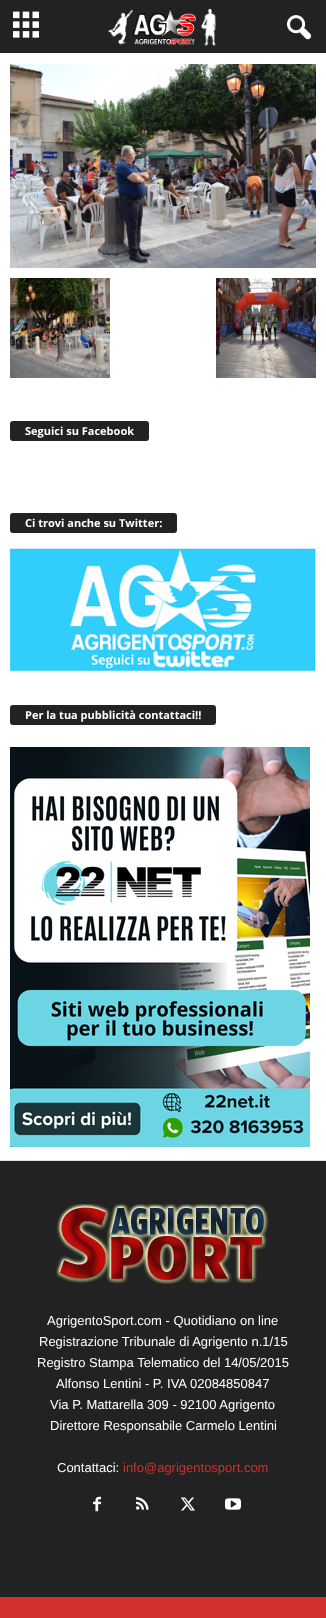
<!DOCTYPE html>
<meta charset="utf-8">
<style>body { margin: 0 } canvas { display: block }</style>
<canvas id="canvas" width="326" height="1618"></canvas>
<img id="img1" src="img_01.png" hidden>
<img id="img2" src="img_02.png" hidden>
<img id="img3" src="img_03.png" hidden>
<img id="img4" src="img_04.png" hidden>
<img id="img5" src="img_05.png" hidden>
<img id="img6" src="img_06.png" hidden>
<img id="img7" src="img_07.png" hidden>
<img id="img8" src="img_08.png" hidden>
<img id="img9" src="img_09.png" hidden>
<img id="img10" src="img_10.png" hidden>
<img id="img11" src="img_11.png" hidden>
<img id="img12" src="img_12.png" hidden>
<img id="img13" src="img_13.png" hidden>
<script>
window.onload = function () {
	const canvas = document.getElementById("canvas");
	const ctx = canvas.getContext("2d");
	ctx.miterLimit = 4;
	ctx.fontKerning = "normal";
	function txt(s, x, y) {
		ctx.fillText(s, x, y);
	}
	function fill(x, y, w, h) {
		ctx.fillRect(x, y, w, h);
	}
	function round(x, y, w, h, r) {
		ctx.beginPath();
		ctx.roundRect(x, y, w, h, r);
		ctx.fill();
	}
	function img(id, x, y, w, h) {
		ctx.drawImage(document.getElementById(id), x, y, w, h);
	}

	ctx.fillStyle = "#FFFFFF";
	fill(0, 0, 326, 1618);
	ctx.fillStyle = "#222222";
	fill(0, 0, 326, 53);
	img("img1", 13, 11, 26, 27);
	img("img2", 108, 8, 108, 38);
	img("img3", 287, 15, 25, 25);
	ctx.fillStyle = "#E6E6E6";
	fill(0, 1160, 326, 1);
	img("img4", 10, 64, 306, 204);
	img("img5", 10, 278, 100, 100);
	img("img6", 216, 278, 100, 100);
	ctx.fillStyle = "#222222";
	round(10, 421, 139, 20, 3);
	round(10, 513, 167, 20, 3);
	img("img7", 10, 548, 306, 123);
	round(10, 705, 206, 20, 3);
	img("img8", 10, 747, 300, 400);
	fill(0, 1161, 326, 436);
	img("img9", 55, 1204, 214, 80);
	img("img10", 93, 1496, 8, 16);
	img("img11", 136, 1497, 13, 13);
	img("img12", 180, 1497, 15, 14);
	img("img13", 225, 1498, 16, 12);
	ctx.fillStyle = "#D13030";
	fill(0, 1597, 326, 21);
	ctx.font = "bold 11px Open Sans";
	ctx.fillStyle = "#FFFFFF";
	txt("Seguici su Facebook", 25, 435);
	txt("Ci trovi anche su Twitter:", 25, 527);
	txt("Per la tua pubblicità contattaci!!", 25, 719);
	ctx.font = "13px Liberation Sans";
	txt("AgrigentoSport.com - Quotidiano on line", 47, 1325);
	txt("Registrazione Tribunale di Agrigento n.1/15", 39, 1346);
	txt("Registro Stampa Telematico del 14/05/2015", 37, 1367);
	txt("Alfonso Lentini - P. IVA 02084850847", 56, 1388);
	txt("Via P. Mattarella 309 - 92100 Agrigento", 50, 1409);
	txt("Direttore Responsabile Carmelo Lentini", 50, 1430);
	txt("Contattaci:", 57, 1472);
	ctx.fillStyle = "#D13030";
	txt("info@agrigentosport.com", 123, 1472);
};
</script>
